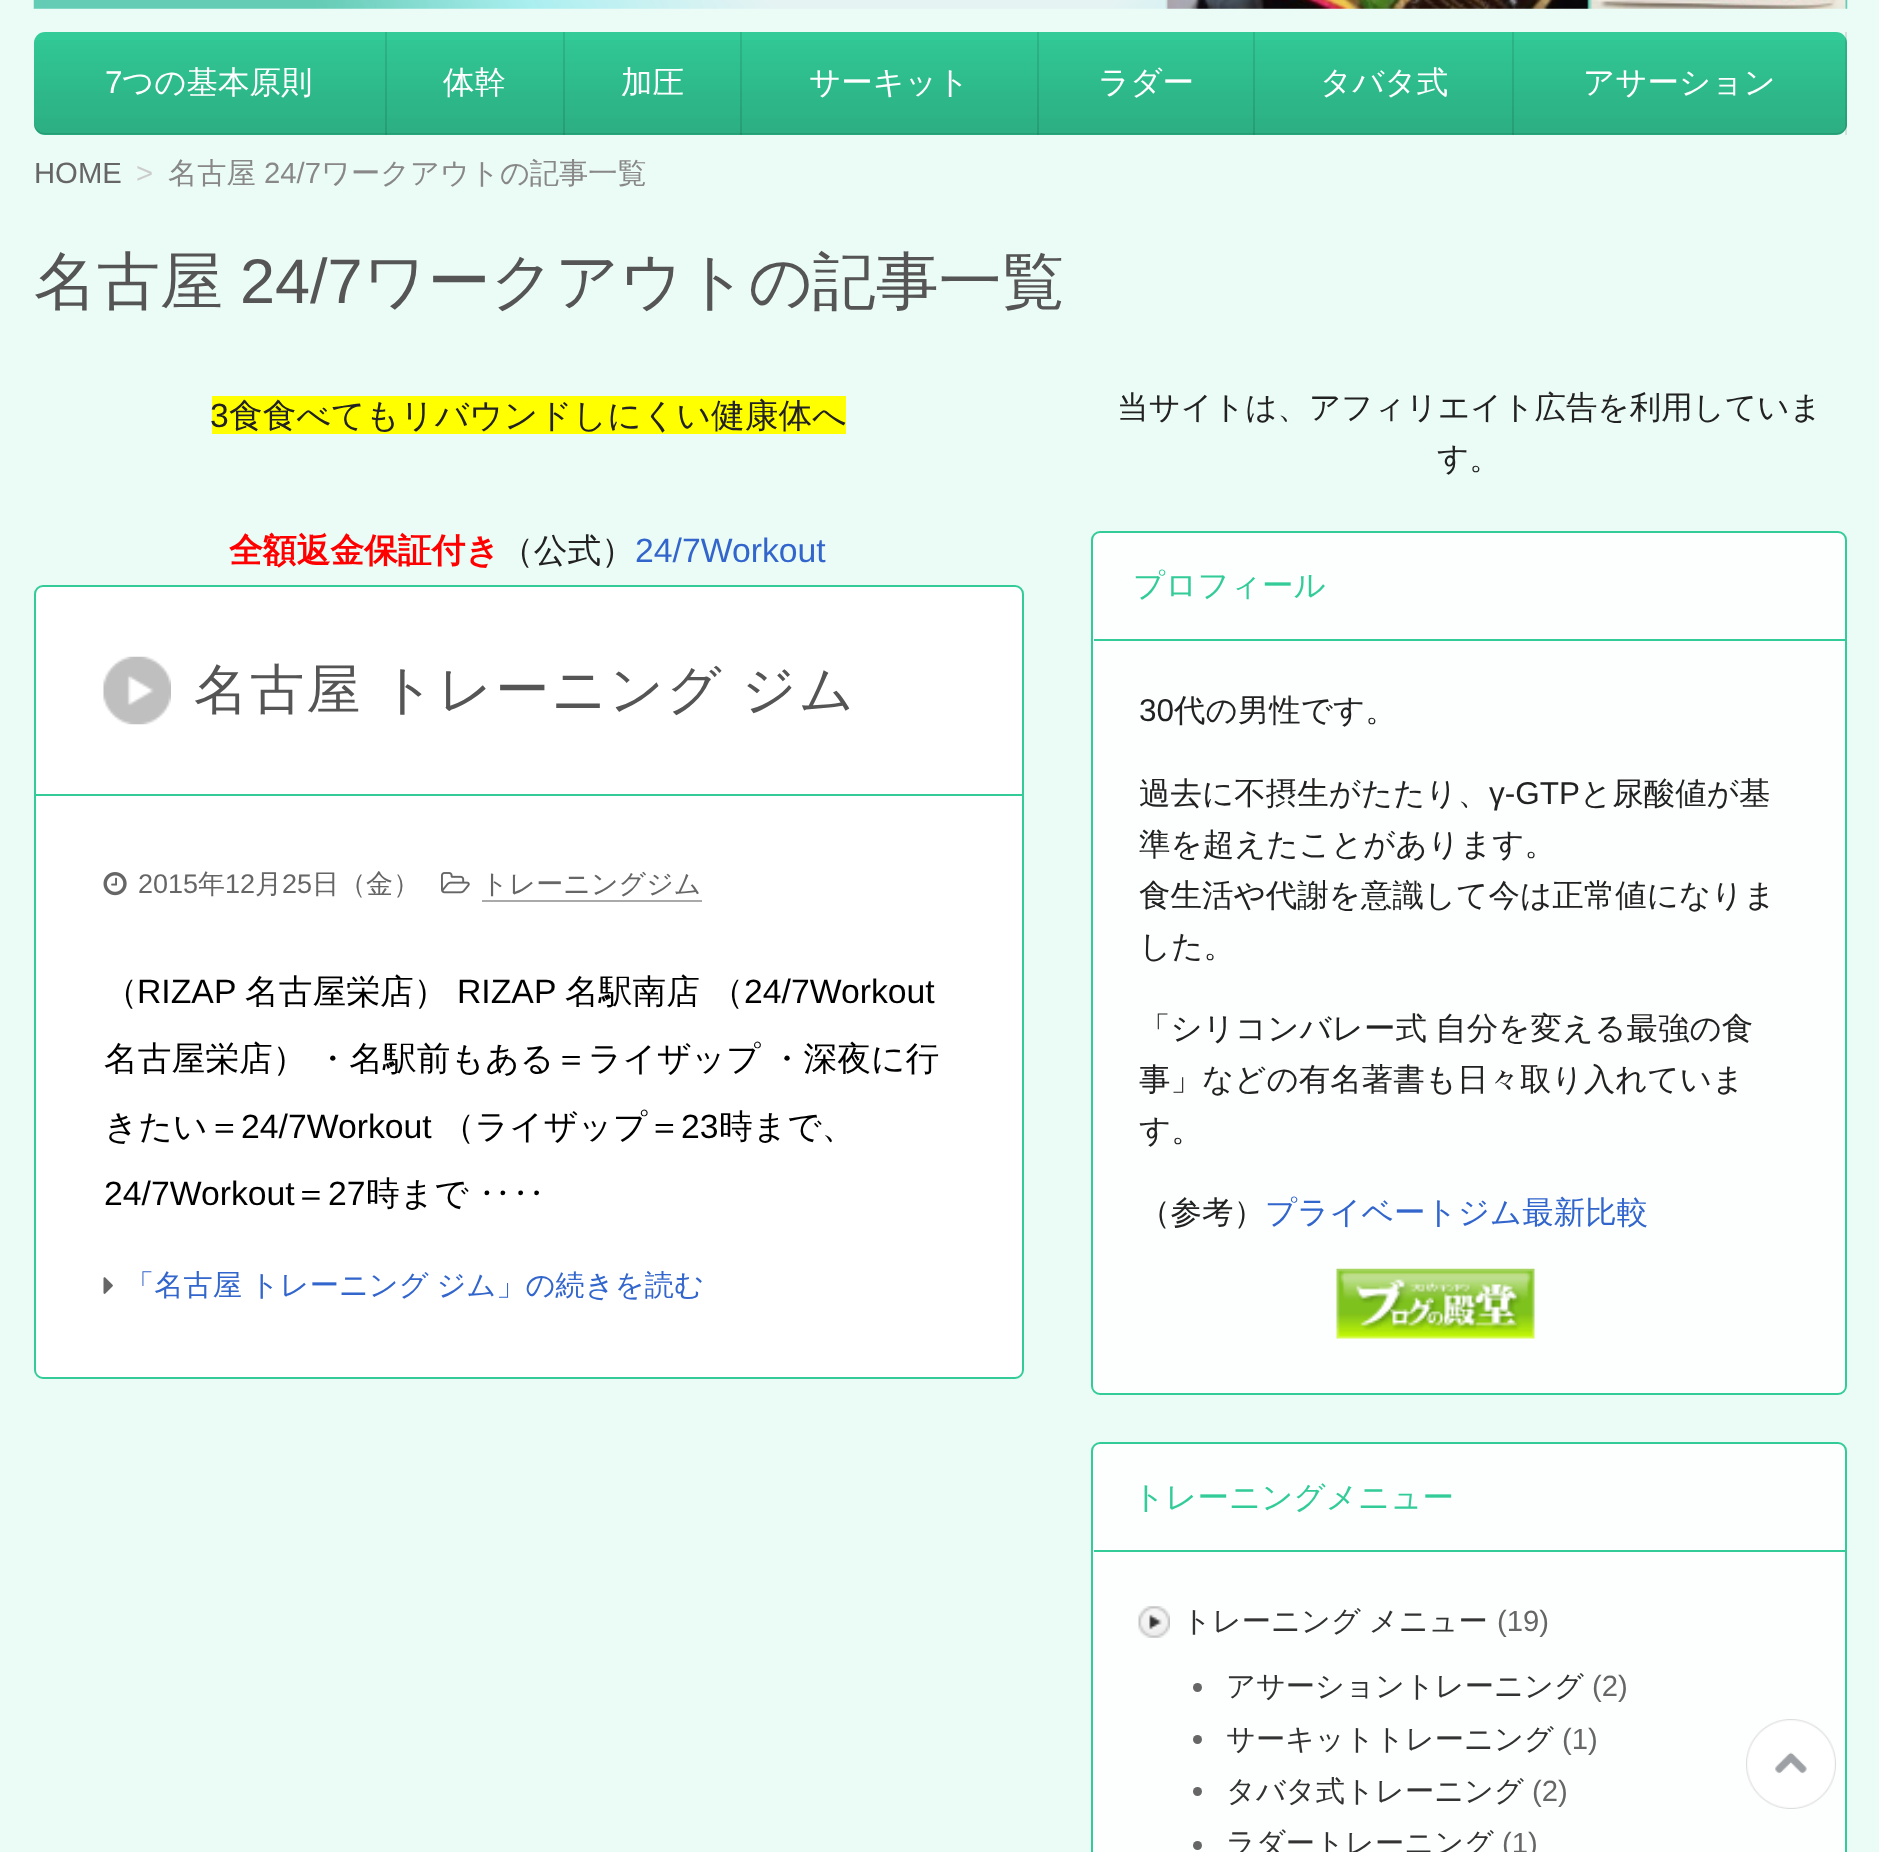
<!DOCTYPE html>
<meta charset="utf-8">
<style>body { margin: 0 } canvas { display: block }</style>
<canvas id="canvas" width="1879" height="1852"></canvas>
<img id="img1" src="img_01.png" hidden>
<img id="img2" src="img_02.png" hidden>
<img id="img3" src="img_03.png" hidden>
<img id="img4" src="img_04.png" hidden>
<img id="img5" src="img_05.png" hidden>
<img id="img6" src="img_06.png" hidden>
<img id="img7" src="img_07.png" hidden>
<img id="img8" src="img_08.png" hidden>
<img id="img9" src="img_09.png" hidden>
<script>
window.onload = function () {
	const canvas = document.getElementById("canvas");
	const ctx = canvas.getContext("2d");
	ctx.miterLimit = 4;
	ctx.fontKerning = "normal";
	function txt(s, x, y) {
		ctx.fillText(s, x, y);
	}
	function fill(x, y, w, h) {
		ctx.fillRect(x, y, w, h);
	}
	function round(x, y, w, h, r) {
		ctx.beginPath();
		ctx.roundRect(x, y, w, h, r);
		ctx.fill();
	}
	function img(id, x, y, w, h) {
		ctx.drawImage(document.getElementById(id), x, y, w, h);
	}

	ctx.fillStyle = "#EBFBF6";
	fill(0, 0, 1879, 1852);
	img("img1", 33, 0, 1815, 9);
	ctx.fillStyle = "#33CC99";
	round(34, 32, 1813, 103, 11);
	img("img2", 34, 40, 1813, 95);
	ctx.fillStyle = "rgba(0, 0, 0, 0.1)";
	ctx.beginPath();
	ctx.moveTo(34, 122);
	ctx.lineTo(34, 124);
	ctx.bezierCurveTo(34, 130, 39, 135, 45, 135);
	ctx.lineTo(1836, 135);
	ctx.bezierCurveTo(1842, 135, 1847, 130, 1847, 124);
	ctx.lineTo(1847, 122);
	ctx.bezierCurveTo(1847, 128, 1842, 133, 1836, 133);
	ctx.lineTo(45, 133);
	ctx.bezierCurveTo(39, 133, 34, 128, 34, 122);
	ctx.closePath();
	ctx.fill();
	fill(385, 32, 2, 103);
	fill(563, 32, 2, 103);
	fill(740, 32, 2, 103);
	fill(1037, 32, 2, 103);
	fill(1253, 32, 2, 103);
	fill(1512, 32, 2, 103);
	fill(1845, 32, 2, 103);
	ctx.fillStyle = "#FFFF00";
	fill(212, 396, 634, 38);
	ctx.fillStyle = "#FFFFFF";
	ctx.beginPath();
	ctx.roundRect(35, 586, 988, 792, 8);
	ctx.fill();
	ctx.strokeStyle = "#33CC99";
	ctx.lineWidth = 2;
	ctx.stroke();
	ctx.fillStyle = "#33CC99";
	fill(36, 794, 986, 2);
	img("img3", 103, 656, 68, 69);
	img("img4", 103, 872, 24, 24);
	img("img5", 441, 872, 29, 22);
	ctx.fillStyle = "#AAAAAA";
	fill(482, 900, 220, 2);
	img("img6", 103, 1277, 10, 17);
	ctx.fillStyle = "#FDFFFE";
	ctx.beginPath();
	ctx.roundRect(1092, 532, 754, 862, 8);
	ctx.fill();
	ctx.stroke();
	ctx.fillStyle = "#33CC99";
	fill(1094, 639, 751, 2);
	img("img7", 1336, 1268, 199, 71);
	ctx.fillStyle = "#FDFFFE";
	ctx.beginPath();
	ctx.roundRect(1092, 1443, 754, 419, 8);
	ctx.fill();
	ctx.stroke();
	ctx.fillStyle = "#33CC99";
	fill(1094, 1550, 751, 2);
	img("img8", 1138, 1606, 32, 32);
	ctx.fillStyle = "#666666";
	ctx.beginPath();
	ctx.arc(1197.5, 1687.5, 4.5, 0, Math.PI * 2);
	ctx.fill();
	ctx.beginPath();
	ctx.arc(1197.5, 1739.5, 4.5, 0, Math.PI * 2);
	ctx.fill();
	ctx.beginPath();
	ctx.arc(1197.5, 1791.5, 4.5, 0, Math.PI * 2);
	ctx.fill();
	ctx.beginPath();
	ctx.arc(1197.5, 1845.5, 4.5, 0, Math.PI * 2);
	ctx.fill();
	img("img9", 1746, 1719, 90, 90);
	ctx.font = "31.5px Liberation Sans";
	ctx.fillStyle = "#FFFFFF";
	txt("7", 105, 93);
	ctx.font = "500 31.5px WenQuanYi Zen Hei";
	txt("つの基本原則", 122, 93);
	txt("体幹", 443, 93);
	txt("加圧", 621, 93);
	txt("サーキット", 809, 93);
	txt("ラダー", 1098, 93);
	txt("タバタ式", 1320, 93);
	txt("アサーション", 1583, 93);
	ctx.font = "29.25px Liberation Sans";
	ctx.fillStyle = "#666666";
	txt("HOME", 34, 183);
	ctx.fillStyle = "#CCCCCC";
	txt(">", 136, 183);
	ctx.font = "500 29.25px WenQuanYi Zen Hei";
	ctx.fillStyle = "#888888";
	txt("名古屋", 168, 183);
	ctx.font = "29.25px Liberation Sans";
	txt("24/7", 264, 183);
	ctx.font = "500 29.25px WenQuanYi Zen Hei";
	txt("ワークアウトの記事一覧", 321, 183);
	ctx.font = "500 63px WenQuanYi Zen Hei";
	ctx.fillStyle = "#555555";
	txt("名古屋", 34, 303);
	ctx.font = "63px Liberation Sans";
	txt("24/7", 240, 303);
	ctx.font = "500 63px WenQuanYi Zen Hei";
	txt("ワークアウトの記事一覧", 363, 303);
	ctx.font = "33.75px Liberation Sans";
	ctx.fillStyle = "#222222";
	txt("3", 210, 427);
	ctx.font = "500 33.75px WenQuanYi Zen Hei";
	txt("食食べてもリバウンドしにくい健康体へ", 229, 427);
	ctx.font = "bold 33.75px WenQuanYi Zen Hei";
	ctx.fillStyle = "#FF0000";
	txt("全額返金保証付き", 229, 562);
	ctx.font = "500 33.75px WenQuanYi Zen Hei";
	ctx.fillStyle = "#222222";
	txt("（公式）", 500, 562);
	ctx.font = "33.75px Liberation Sans";
	ctx.fillStyle = "#3366CC";
	txt("24/7Workout", 635, 562);
	ctx.letterSpacing = "2.25px";
	ctx.wordSpacing = "-1px";
	ctx.font = "500 54px WenQuanYi Zen Hei";
	ctx.fillStyle = "#555555";
	txt("名古屋 トレーニング ジム", 194, 708);
	ctx.letterSpacing = "0px";
	ctx.wordSpacing = "0px";
	ctx.font = "27px Liberation Sans";
	ctx.fillStyle = "#666666";
	txt("2015", 138, 893);
	ctx.font = "500 27px WenQuanYi Zen Hei";
	txt("年", 198, 893);
	ctx.font = "27px Liberation Sans";
	txt("12", 225, 893);
	ctx.font = "500 27px WenQuanYi Zen Hei";
	txt("月", 255, 893);
	ctx.font = "27px Liberation Sans";
	txt("25", 282, 893);
	ctx.font = "500 27px WenQuanYi Zen Hei";
	txt("日（金）", 312, 893);
	txt("トレーニングジム", 481, 893);
	ctx.font = "500 33.75px WenQuanYi Zen Hei";
	ctx.fillStyle = "#000000";
	txt("（", 104, 1003);
	ctx.font = "33.75px Liberation Sans";
	txt("RIZAP", 137, 1003);
	ctx.font = "500 33.75px WenQuanYi Zen Hei";
	txt("名古屋栄店）", 245, 1003);
	ctx.font = "33.75px Liberation Sans";
	txt("RIZAP", 457, 1003);
	ctx.font = "500 33.75px WenQuanYi Zen Hei";
	txt("名駅南店 （", 565, 1003);
	ctx.font = "33.75px Liberation Sans";
	txt("24/7Workout", 744, 1003);
	ctx.wordSpacing = "-1px";
	ctx.font = "500 33.75px WenQuanYi Zen Hei";
	txt("名古屋栄店） ・名駅前もある＝ライザップ ・深夜に行", 104, 1070);
	ctx.wordSpacing = "0px";
	txt("きたい＝", 104, 1138);
	ctx.font = "33.75px Liberation Sans";
	txt("24/7Workout", 241, 1138);
	ctx.font = "500 33.75px WenQuanYi Zen Hei";
	txt("（ライザップ＝", 441, 1138);
	ctx.font = "33.75px Liberation Sans";
	txt("23", 681, 1138);
	ctx.font = "500 33.75px WenQuanYi Zen Hei";
	txt("時まで、", 719, 1138);
	ctx.font = "33.75px Liberation Sans";
	txt("24/7Workout", 104, 1205);
	ctx.font = "500 33.75px WenQuanYi Zen Hei";
	txt("＝", 294, 1205);
	ctx.font = "33.75px Liberation Sans";
	txt("27", 328, 1205);
	ctx.wordSpacing = "-1px";
	ctx.font = "500 33.75px WenQuanYi Zen Hei";
	txt("時まで ‥‥", 366, 1205);
	ctx.font = "500 29.25px WenQuanYi Zen Hei";
	ctx.fillStyle = "#3366CC";
	txt("「名古屋 トレーニング ジム」の続きを読む", 125, 1295);
	ctx.wordSpacing = "0px";
	ctx.font = "500 31.5px WenQuanYi Zen Hei";
	ctx.fillStyle = "#222222";
	txt("当サイトは、アフィリエイト広告を利用していま", 1117, 418);
	txt("す。", 1437, 469);
	ctx.fillStyle = "#33CC99";
	txt("プロフィール", 1133, 596);
	ctx.font = "31.5px Liberation Sans";
	ctx.fillStyle = "#222222";
	txt("30", 1139, 721);
	ctx.font = "500 31.5px WenQuanYi Zen Hei";
	txt("代の男性です。", 1174, 721);
	txt("過去に不摂生がたたり、", 1139, 804);
	ctx.font = "31.5px Liberation Sans";
	txt("γ-GTP", 1489, 804);
	ctx.font = "500 31.5px WenQuanYi Zen Hei";
	txt("と尿酸値が基", 1580, 804);
	txt("準を超えたことがあります。", 1139, 855);
	txt("食生活や代謝を意識して今は正常値になりま", 1139, 906);
	txt("した。", 1139, 957);
	ctx.wordSpacing = "-1px";
	txt("「シリコンバレー式 自分を変える最強の食", 1139, 1039);
	ctx.wordSpacing = "0px";
	txt("事」などの有名著書も日々取り入れていま", 1139, 1090);
	txt("す。", 1139, 1141);
	txt("（参考）", 1139, 1223);
	ctx.fillStyle = "#3366CC";
	txt("プライベートジム最新比較", 1265, 1223);
	ctx.fillStyle = "#33CC99";
	txt("トレーニングメニュー", 1133, 1508);
	ctx.wordSpacing = "-1px";
	ctx.font = "500 29.25px WenQuanYi Zen Hei";
	ctx.fillStyle = "#333333";
	txt("トレーニング メニュー", 1182, 1631);
	ctx.wordSpacing = "0px";
	ctx.font = "29.25px Liberation Sans";
	ctx.fillStyle = "#666666";
	txt("(19)", 1497, 1631);
	ctx.font = "500 29.25px WenQuanYi Zen Hei";
	ctx.fillStyle = "#333333";
	txt("アサーショントレーニング", 1226, 1696);
	ctx.font = "29.25px Liberation Sans";
	ctx.fillStyle = "#666666";
	txt("(2)", 1592, 1696);
	ctx.font = "500 29.25px WenQuanYi Zen Hei";
	ctx.fillStyle = "#333333";
	txt("サーキットトレーニング", 1226, 1749);
	ctx.font = "29.25px Liberation Sans";
	ctx.fillStyle = "#666666";
	txt("(1)", 1562, 1749);
	ctx.font = "500 29.25px WenQuanYi Zen Hei";
	ctx.fillStyle = "#333333";
	txt("タバタ式トレーニング", 1226, 1801);
	ctx.font = "29.25px Liberation Sans";
	ctx.fillStyle = "#666666";
	txt("(2)", 1532, 1801);
	ctx.font = "500 29.25px WenQuanYi Zen Hei";
	ctx.fillStyle = "#333333";
	txt("ラダートレーニング", 1226, 1853);
	ctx.font = "29.25px Liberation Sans";
	ctx.fillStyle = "#666666";
	txt("(1)", 1502, 1853);
};
</script>
